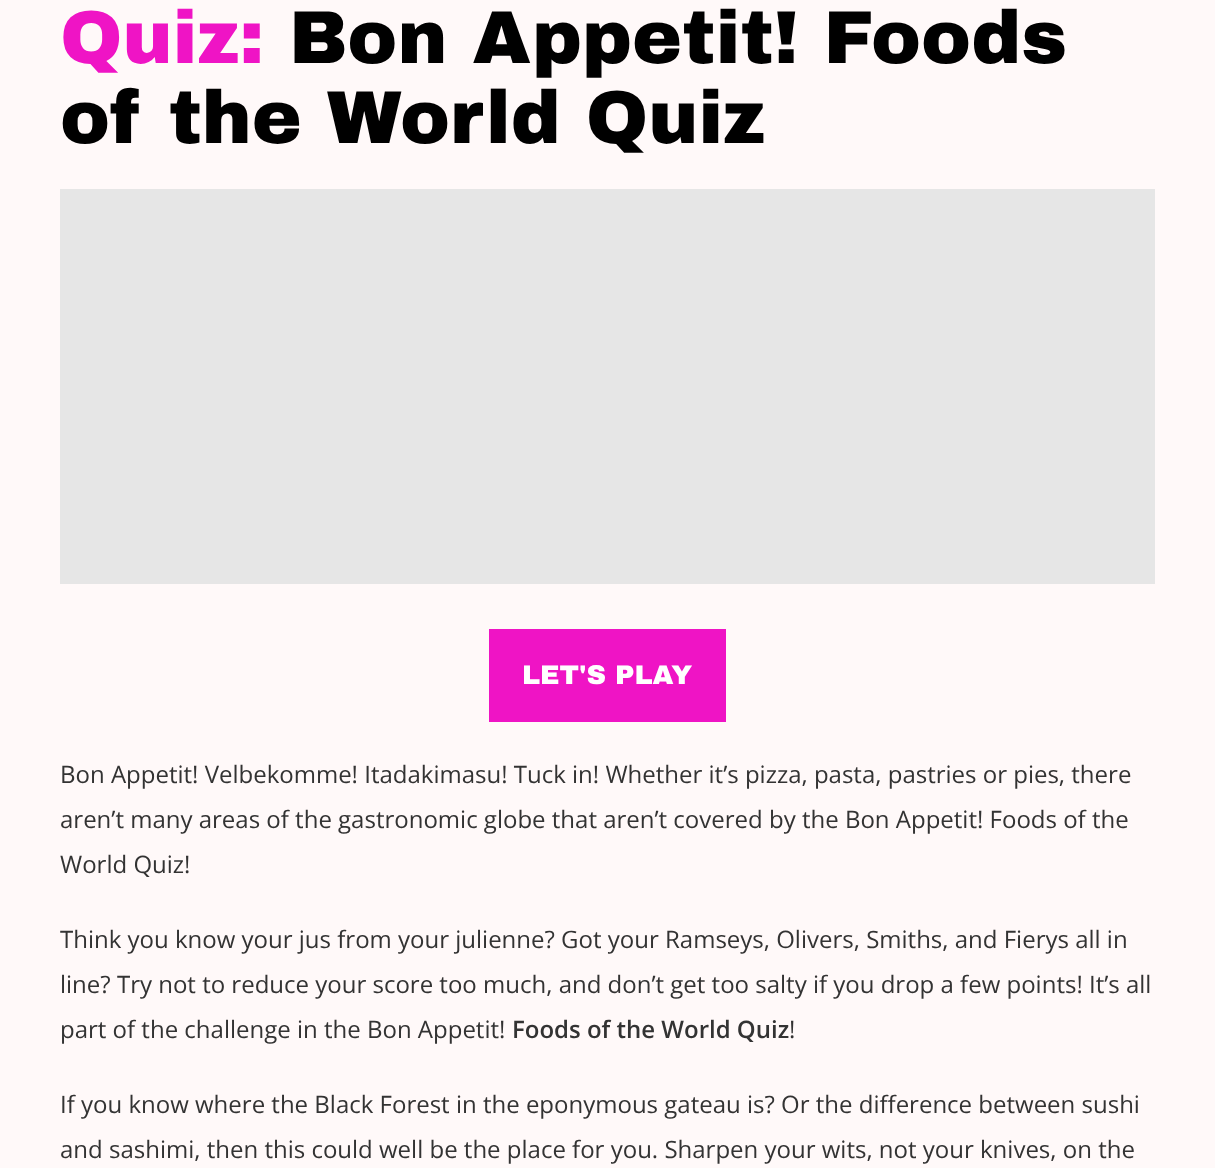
<!DOCTYPE html>
<meta charset="utf-8">
<style>body { margin: 0 } canvas { display: block }</style>
<canvas id="canvas" width="1215" height="1168"></canvas>
<script>
window.onload = function () {
	const canvas = document.getElementById("canvas");
	const ctx = canvas.getContext("2d");
	ctx.miterLimit = 4;
	ctx.fontKerning = "normal";
	function txt(s, x, y) {
		ctx.fillText(s, x, y);
	}
	function fill(x, y, w, h) {
		ctx.fillRect(x, y, w, h);
	}

	ctx.fillStyle = "#FFF9F9";
	fill(0, 0, 1215, 1168);
	ctx.fillStyle = "#E6E6E6";
	fill(60, 189, 1095, 395);
	ctx.fillStyle = "#EF14C5";
	fill(489, 629, 237, 93);
	ctx.font = "75px Archivo Black";
	txt("Quiz:", 60, 63);
	ctx.fillStyle = "#000000";
	txt("Bon Appetit! Foods", 289, 63);
	txt("of the World Quiz", 60, 143);
	ctx.font = "27px Archivo Black";
	ctx.fillStyle = "#FFFFFF";
	txt("LET'S PLAY", 522, 684);
	ctx.font = "24px Open Sans";
	ctx.fillStyle = "#333333";
	txt("Bon Appetit! Velbekomme! Itadakimasu! Tuck in! Whether it’s pizza, pasta, pastries or pies, there", 60, 783);
	txt("aren’t many areas of the gastronomic globe that aren’t covered by the Bon Appetit! Foods of the", 60, 828);
	txt("World Quiz!", 60, 873);
	txt("Think you know your jus from your julienne? Got your Ramseys, Olivers, Smiths, and Fierys all in", 60, 948);
	txt("line? Try not to reduce your score too much, and don’t get too salty if you drop a few points! It’s all", 60, 993);
	txt("part of the challenge in the Bon Appetit!", 60, 1038);
	ctx.font = "600 24px Open Sans";
	txt("Foods of the World Quiz", 512, 1038);
	ctx.font = "24px Open Sans";
	txt("!", 789, 1038);
	txt("If you know where the Black Forest in the eponymous gateau is? Or the difference between sushi", 60, 1113);
	txt("and sashimi, then this could well be the place for you. Sharpen your wits, not your knives, on the", 60, 1158);
};
</script>
